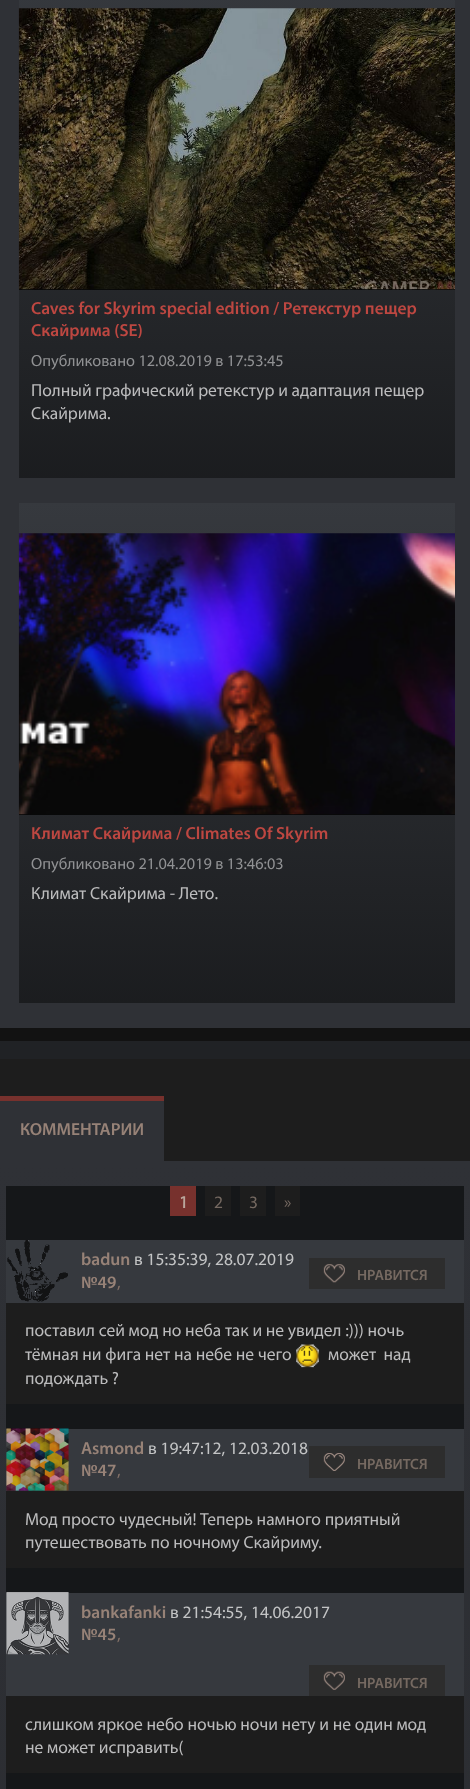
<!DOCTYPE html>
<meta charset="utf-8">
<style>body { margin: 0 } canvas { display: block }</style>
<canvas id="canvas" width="470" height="1789"></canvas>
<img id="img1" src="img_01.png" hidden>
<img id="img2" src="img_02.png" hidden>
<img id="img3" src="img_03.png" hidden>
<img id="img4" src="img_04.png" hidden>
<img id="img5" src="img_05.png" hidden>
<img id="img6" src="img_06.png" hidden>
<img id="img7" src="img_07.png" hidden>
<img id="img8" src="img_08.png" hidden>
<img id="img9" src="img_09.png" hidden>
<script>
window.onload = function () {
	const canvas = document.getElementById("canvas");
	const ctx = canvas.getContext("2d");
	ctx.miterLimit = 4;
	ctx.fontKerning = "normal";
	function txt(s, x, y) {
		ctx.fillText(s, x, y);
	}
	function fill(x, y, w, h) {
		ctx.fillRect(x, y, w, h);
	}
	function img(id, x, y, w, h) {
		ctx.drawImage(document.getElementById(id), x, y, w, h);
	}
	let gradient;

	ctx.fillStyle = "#1D1D1D";
	fill(0, 0, 470, 1789);
	ctx.fillStyle = "#121212";
	fill(0, 1028, 470, 13);
	ctx.fillStyle = "#2F3136";
	fill(0, 0, 470, 1028);
	gradient = ctx.createLinearGradient(237, -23, 237, 978);
	gradient.addColorStop(0, "#36393E");
	gradient.addColorStop(1, "#000000");
	ctx.fillStyle = gradient;
	fill(19, 0, 436, 478);
	img("img1", 18, 8, 437, 282);
	ctx.fillStyle = "rgba(0, 0, 0, 0.65)";
	fill(19, 289, 436, 1);
	gradient = ctx.createLinearGradient(237, 503, 237, 1503);
	gradient.addColorStop(0, "#36393E");
	gradient.addColorStop(1, "#000000");
	ctx.fillStyle = gradient;
	fill(19, 503, 436, 500);
	img("img2", 18, 533, 437, 282);
	ctx.fillStyle = "rgba(0, 0, 0, 0.65)";
	fill(19, 814, 436, 1);
	ctx.fillStyle = "#202225";
	fill(0, 1041, 470, 18);
	ctx.fillStyle = "#2F3136";
	fill(0, 1101, 164, 60);
	ctx.fillStyle = "#77312D";
	fill(0, 1096, 164, 5);
	gradient = ctx.createLinearGradient(235, 1161, 235, 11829);
	gradient.addColorStop(0, "#2F3136");
	gradient.addColorStop(1, "#000000");
	ctx.fillStyle = gradient;
	fill(0, 1161, 470, 628);
	ctx.fillStyle = "#151719";
	fill(6, 1186, 458, 603);
	ctx.fillStyle = "#77312D";
	fill(170, 1186, 26, 30);
	ctx.fillStyle = "#1D1D1D";
	fill(205, 1186, 26, 30);
	fill(240, 1186, 26, 30);
	fill(275, 1186, 25, 30);
	fill(6, 1303, 458, 101);
	ctx.fillStyle = "#36393E";
	fill(6, 1240, 458, 63);
	img("img3", 7, 1240, 61, 62);
	ctx.fillStyle = "#2D2D2D";
	fill(309, 1258, 136, 31);
	img("img4", 323, 1264, 22, 19);
	img("img5", 296, 1344, 23, 24);
	ctx.fillStyle = "#1D1D1D";
	fill(6, 1491, 458, 77);
	ctx.fillStyle = "#36393E";
	fill(6, 1429, 458, 62);
	img("img6", 6, 1428, 63, 63);
	ctx.fillStyle = "#2D2D2D";
	fill(309, 1446, 136, 32);
	img("img7", 323, 1453, 22, 18);
	ctx.fillStyle = "#1D1D1D";
	fill(6, 1696, 458, 77);
	ctx.fillStyle = "#36393E";
	fill(6, 1593, 458, 103);
	img("img8", 6, 1592, 63, 63);
	ctx.fillStyle = "#2D2D2D";
	fill(309, 1665, 136, 31);
	img("img9", 323, 1671, 22, 19);
	ctx.font = "600 17.5px Myriad";
	ctx.fillStyle = "#BD4741";
	txt("Caves for Skyrim special edition / Ретекстур пещер", 31, 314);
	txt("Скайрима (SE)", 31, 336);
	ctx.font = "16.25px Myriad";
	ctx.fillStyle = "#909193";
	txt("Опубликовано 12.08.2019 в 17:53:45", 31, 366);
	ctx.font = "17.5px Myriad";
	ctx.fillStyle = "#BCBCBD";
	txt("Полный графический ретекстур и адаптация пещер", 31, 396);
	txt("Скайрима.", 31, 419);
	ctx.font = "600 17.5px Myriad";
	ctx.fillStyle = "#BD4741";
	txt("Климат Скайрима / Climates Of Skyrim", 31, 839);
	ctx.font = "16.25px Myriad";
	ctx.fillStyle = "#909193";
	txt("Опубликовано 21.04.2019 в 13:46:03", 31, 869);
	ctx.font = "17.5px Myriad";
	ctx.fillStyle = "#BCBCBD";
	txt("Климат Скайрима - Лето.", 31, 899);
	ctx.font = "600 17.5px Myriad";
	ctx.fillStyle = "#978277";
	txt("КОММЕНТАРИИ", 20, 1135);
	ctx.font = "bold 17.5px Myriad";
	ctx.fillStyle = "#BAA69C";
	txt("1", 179, 1208);
	ctx.font = "17.5px Myriad";
	ctx.fillStyle = "#756961";
	txt("2", 214, 1208);
	txt("3", 249, 1208);
	txt("»", 284, 1208);
	ctx.font = "600 17.5px Myriad";
	ctx.fillStyle = "#978277";
	txt("badun", 81, 1265);
	ctx.font = "17.5px Myriad";
	ctx.fillStyle = "#C3C4C5";
	txt("в 15:35:39, 28.07.2019", 134, 1265);
	ctx.font = "600 17.5px Myriad";
	ctx.fillStyle = "#978277";
	txt("№49", 81, 1288);
	ctx.font = "17.5px Myriad";
	ctx.fillStyle = "#827067";
	txt(",", 117, 1288);
	ctx.font = "600 15px Myriad";
	ctx.fillStyle = "#756961";
	txt("НРАВИТСЯ", 357, 1280);
	ctx.font = "17.5px Myriad";
	ctx.fillStyle = "#BCBCBD";
	txt("поставил сей мод но неба так и не увидел :))) ночь", 25, 1336);
	txt("тёмная ни фига нет на небе не чего", 25, 1360);
	txt("может  над", 328, 1360);
	txt("подождать ?", 25, 1384);
	ctx.font = "600 17.5px Myriad";
	ctx.fillStyle = "#978277";
	txt("Asmond", 81, 1454);
	ctx.font = "17.5px Myriad";
	ctx.fillStyle = "#C3C4C5";
	txt("в 19:47:12, 12.03.2018", 148, 1454);
	ctx.font = "600 17.5px Myriad";
	ctx.fillStyle = "#978277";
	txt("№47", 81, 1476);
	ctx.font = "17.5px Myriad";
	ctx.fillStyle = "#827067";
	txt(",", 117, 1476);
	ctx.font = "600 15px Myriad";
	ctx.fillStyle = "#756961";
	txt("НРАВИТСЯ", 357, 1469);
	ctx.font = "17.5px Myriad";
	ctx.fillStyle = "#BCBCBD";
	txt("Мод просто чудесный! Теперь намного приятный", 25, 1525);
	txt("путешествовать по ночному Скайриму.", 25, 1548);
	ctx.font = "600 17.5px Myriad";
	ctx.fillStyle = "#978277";
	txt("bankafanki", 81, 1618);
	ctx.font = "17.5px Myriad";
	ctx.fillStyle = "#C3C4C5";
	txt("в 21:54:55, 14.06.2017", 170, 1618);
	ctx.font = "600 17.5px Myriad";
	ctx.fillStyle = "#978277";
	txt("№45", 81, 1640);
	ctx.font = "17.5px Myriad";
	ctx.fillStyle = "#827067";
	txt(",", 117, 1640);
	ctx.font = "600 15px Myriad";
	ctx.fillStyle = "#756961";
	txt("НРАВИТСЯ", 357, 1688);
	ctx.font = "17.5px Myriad";
	ctx.fillStyle = "#BCBCBD";
	txt("слишком яркое небо ночью ночи нету и не один мод", 25, 1730);
	txt("не может исправить(", 25, 1753);
};
</script>
